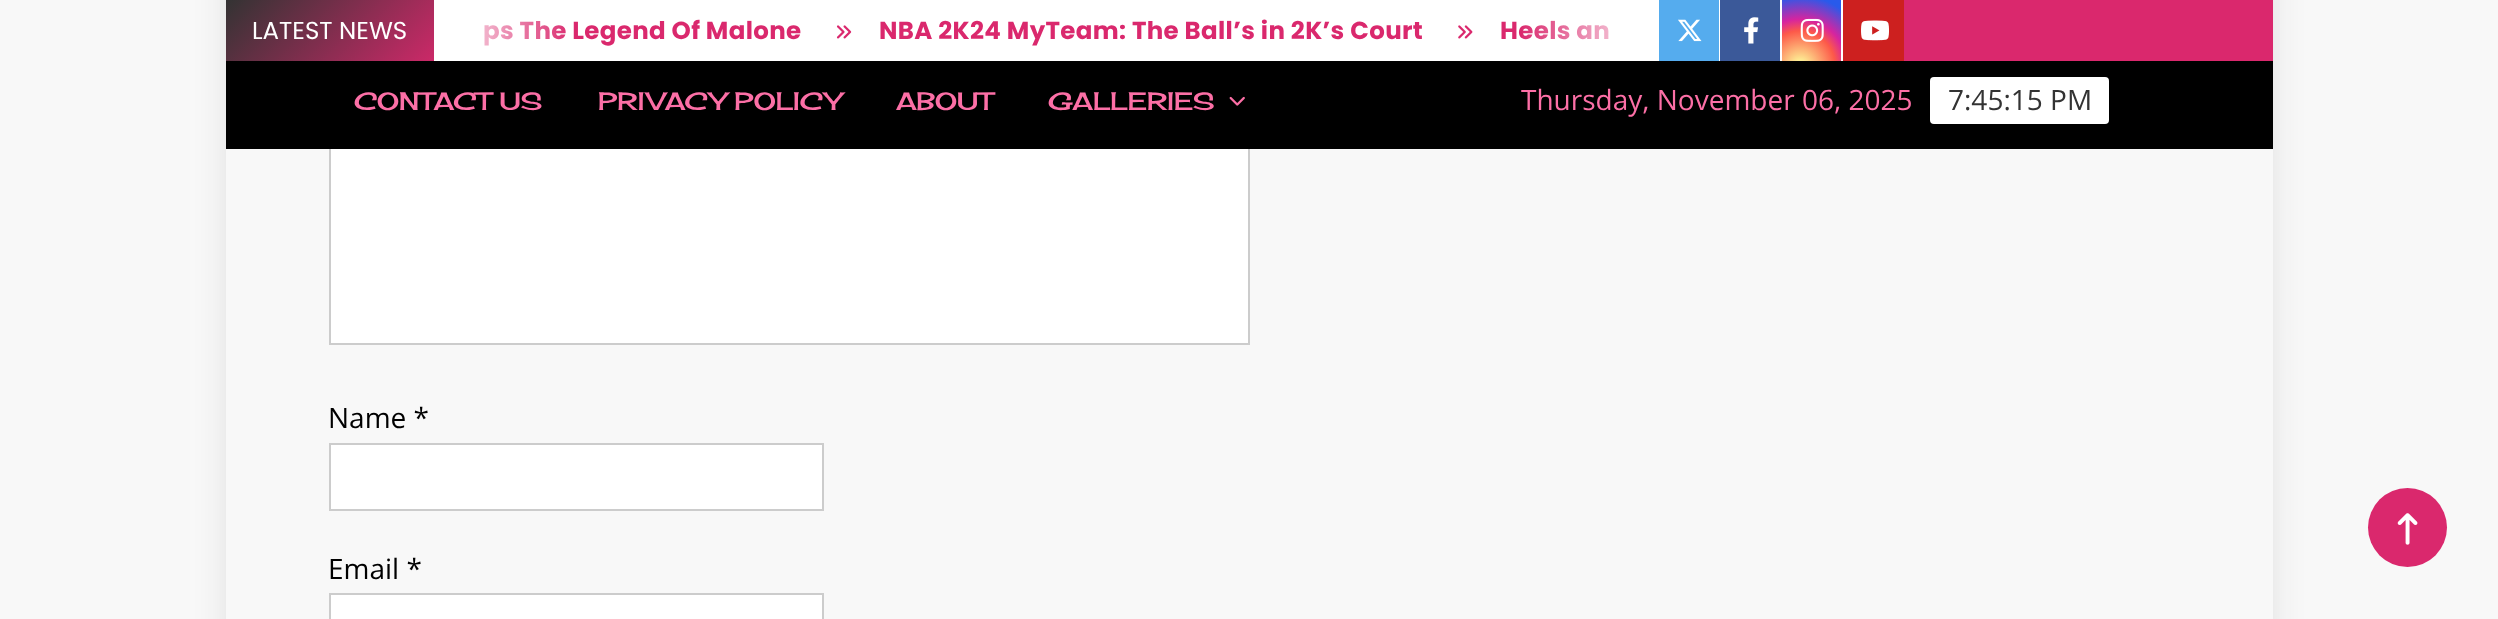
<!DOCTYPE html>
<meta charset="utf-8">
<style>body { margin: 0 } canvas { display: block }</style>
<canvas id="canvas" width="2498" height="619"></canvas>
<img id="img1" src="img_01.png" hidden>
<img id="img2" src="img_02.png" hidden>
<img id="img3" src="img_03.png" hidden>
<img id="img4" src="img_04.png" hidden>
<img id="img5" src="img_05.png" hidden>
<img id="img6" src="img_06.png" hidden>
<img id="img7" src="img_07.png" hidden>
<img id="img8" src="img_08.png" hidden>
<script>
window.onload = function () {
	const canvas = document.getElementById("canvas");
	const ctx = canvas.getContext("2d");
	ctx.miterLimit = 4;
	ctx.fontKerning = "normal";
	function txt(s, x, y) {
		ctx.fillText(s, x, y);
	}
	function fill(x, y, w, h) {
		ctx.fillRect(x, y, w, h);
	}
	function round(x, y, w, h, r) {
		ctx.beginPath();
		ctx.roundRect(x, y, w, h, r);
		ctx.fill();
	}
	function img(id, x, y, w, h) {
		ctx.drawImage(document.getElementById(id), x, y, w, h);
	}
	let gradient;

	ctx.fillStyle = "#F8F8F8";
	fill(0, 0, 2498, 619);
	ctx.save();
	ctx.beginPath();
	ctx.moveTo(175, 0);
	ctx.lineTo(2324, 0);
	ctx.lineTo(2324, 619);
	ctx.lineTo(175, 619);
	ctx.closePath();
	ctx.moveTo(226, -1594);
	ctx.lineTo(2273, -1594);
	ctx.lineTo(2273, 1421);
	ctx.lineTo(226, 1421);
	ctx.closePath();
	ctx.clip("evenodd");
	ctx.fillStyle = "rgba(26, 26, 26, 0.1)";
	ctx.filter = "blur(16.5px)";
	ctx.beginPath();
	ctx.rect(226, -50, 2047, 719);
	ctx.fill();
	ctx.filter = "none";
	ctx.restore();
	ctx.fillStyle = "#FFFFFF";
	fill(331, 149, 917, 194);
	ctx.strokeStyle = "#CCCCCC";
	ctx.lineWidth = 2;
	ctx.strokeRect(330, -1, 919, 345);
	fill(435, 0, 1223, 61);
	gradient = ctx.createLinearGradient(866, 254, 419, -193);
	gradient.addColorStop(0, "#DA286D");
	gradient.addColorStop(0.33, "#EEEEEE");
	gradient.addColorStop(0.67, "#DA286D");
	gradient.addColorStop(1, "#333333");
	ctx.fillStyle = gradient;
	fill(226, 0, 208, 61);
	img("img1", 836, 25, 16, 14);
	img("img2", 1458, 25, 15, 14);
	ctx.fillStyle = "#DA286D";
	fill(1904, 0, 369, 61);
	ctx.fillStyle = "#55ACEE";
	fill(1659, 0, 60, 61);
	img("img3", 1678, 19, 24, 23);
	ctx.fillStyle = "#FFFFFF";
	fill(1719, 0, 1, 61);
	ctx.fillStyle = "#3B5999";
	fill(1720, 0, 60, 61);
	img("img4", 1744, 17, 15, 27);
	ctx.fillStyle = "#FFFFFF";
	fill(1780, 0, 2, 61);
	gradient = ctx.createRadialGradient(1800, 66, 0, 1800, 66, 78);
	gradient.addColorStop(0, "#FDF497");
	gradient.addColorStop(0.05, "#FDF497");
	gradient.addColorStop(0.45, "#FD5949");
	gradient.addColorStop(0.6, "#D6249F");
	gradient.addColorStop(0.9, "#285AEB");
	ctx.fillStyle = gradient;
	fill(1782, 0, 59, 61);
	img("img5", 1800, 18, 24, 24);
	ctx.fillStyle = "#FFFFFF";
	fill(1841, 0, 2, 61);
	ctx.fillStyle = "#CD201F";
	fill(1843, 0, 61, 61);
	img("img6", 1861, 20, 28, 21);
	ctx.fillStyle = "#000000";
	fill(226, 61, 2047, 88);
	img("img7", 1229, 96, 16, 10);
	ctx.fillStyle = "#FFFFFF";
	round(1930, 77, 179, 47, 4);
	ctx.beginPath();
	ctx.rect(330, 444, 493, 66);
	ctx.fill();
	ctx.stroke();
	ctx.beginPath();
	ctx.rect(330, 594, 493, 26);
	ctx.fill();
	ctx.stroke();
	ctx.fillStyle = "#DA286D";
	ctx.beginPath();
	ctx.arc(2407.5, 527.5, 39.5, 0, Math.PI * 2);
	ctx.fill();
	img("img8", 2397, 513, 21, 32);
	ctx.font = "24.5px Poppins";
	ctx.fillStyle = "#FFFFFF";
	txt("LATEST NEWS", 252, 39);
	ctx.letterSpacing = "0.35px";
	ctx.font = "bold 24.5px Poppins";
	ctx.fillStyle = "#DA286D";
	txt("ps The Legend Of Malone", 483, 39);
	gradient = ctx.createLinearGradient(434, 31, 574, 31);
	gradient.addColorStop(0, "#FFFFFF");
	gradient.addColorStop(1, "rgba(255, 255, 255, 0)");
	ctx.fillStyle = gradient;
	fill(434, 0, 132, 61);
	ctx.fillStyle = "#DA286D";
	txt("NBA 2K24 MyTeam: The Ball’s in 2K’s Court", 879, 39);
	txt("Heels an", 1500, 39);
	gradient = ctx.createLinearGradient(1519, 31, 1659, 31);
	gradient.addColorStop(0, "rgba(255, 255, 255, 0)");
	gradient.addColorStop(1, "#FFFFFF");
	ctx.fillStyle = gradient;
	fill(1522, 0, 137, 61);
	ctx.letterSpacing = "0px";
	ctx.font = "24.5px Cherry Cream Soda";
	ctx.fillStyle = "#FC6FA6";
	txt("CONTACT US", 354, 110);
	txt("PRIVACY POLICY", 598, 110);
	txt("ABOUT", 896, 110);
	txt("GALLERIES", 1048, 110);
	ctx.font = "28px Open Sans";
	txt("Thursday, November 06, 2025", 1521, 110);
	ctx.fillStyle = "#333333";
	txt("7:45:15 PM", 1948, 110);
	ctx.fillStyle = "#000000";
	txt("Name *", 328, 428);
	txt("Email *", 328, 579);
};
</script>
